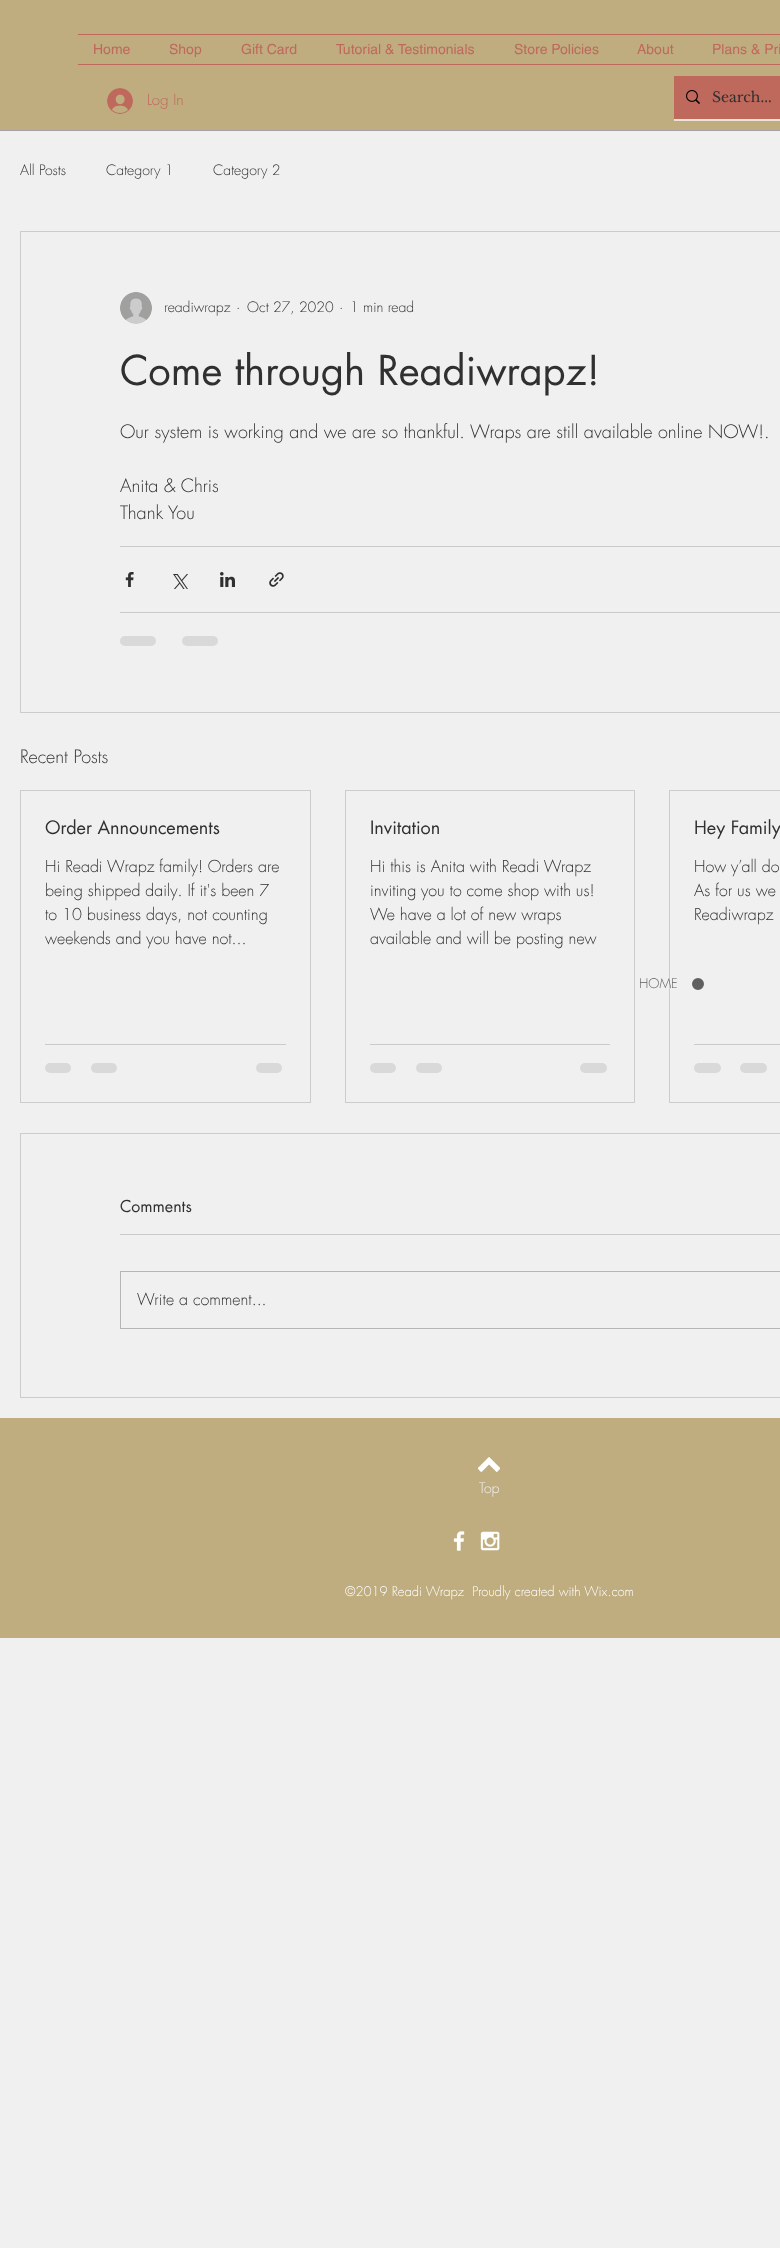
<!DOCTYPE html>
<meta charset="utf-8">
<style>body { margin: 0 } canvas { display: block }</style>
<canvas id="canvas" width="780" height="2248"></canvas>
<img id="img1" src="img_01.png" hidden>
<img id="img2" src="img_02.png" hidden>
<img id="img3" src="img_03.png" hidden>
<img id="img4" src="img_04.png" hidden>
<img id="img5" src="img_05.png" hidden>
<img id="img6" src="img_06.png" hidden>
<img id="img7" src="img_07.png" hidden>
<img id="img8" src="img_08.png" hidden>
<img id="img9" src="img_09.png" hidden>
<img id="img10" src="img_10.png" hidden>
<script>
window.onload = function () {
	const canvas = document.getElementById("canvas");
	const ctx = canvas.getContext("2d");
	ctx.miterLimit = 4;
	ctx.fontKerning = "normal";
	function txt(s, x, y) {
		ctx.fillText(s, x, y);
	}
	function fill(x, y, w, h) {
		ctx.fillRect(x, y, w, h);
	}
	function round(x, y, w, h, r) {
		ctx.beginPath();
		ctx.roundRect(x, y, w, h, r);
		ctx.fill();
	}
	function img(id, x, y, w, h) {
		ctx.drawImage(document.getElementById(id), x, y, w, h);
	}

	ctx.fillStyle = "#F0F0F0";
	fill(0, 0, 780, 2248);
	ctx.fillStyle = "#BFAD7F";
	fill(0, 0, 780, 130);
	ctx.fillStyle = "#A4A2A6";
	fill(0, 130, 780, 1);
	ctx.fillStyle = "#BF685C";
	fill(78, 34, 702, 1);
	fill(78, 64, 702, 1);
	img("img1", 107, 88, 26, 26);
	ctx.fillStyle = "#EBE5D6";
	fill(674, 119, 106, 2);
	ctx.fillStyle = "#BF685C";
	fill(674, 76, 106, 43);
	img("img2", 686, 90, 14, 14);
	ctx.strokeStyle = "#CCCCCC";
	ctx.strokeRect(20.5, 231.5, 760, 481);
	img("img3", 120, 292, 32, 32);
	ctx.fillStyle = "#CACACA";
	fill(120, 546, 660, 1);
	img("img4", 125, 572, 9, 15);
	img("img5", 173, 574, 15, 15);
	img("img6", 220, 572, 15, 15);
	img("img7", 269, 572, 15, 15);
	fill(120, 612, 660, 1);
	ctx.fillStyle = "#D9D9D9";
	round(120, 636, 36, 10, 5);
	round(182, 636, 36, 10, 5);
	ctx.strokeRect(20.5, 790.5, 290, 312);
	ctx.fillStyle = "#CACACA";
	fill(45, 1044, 241, 1);
	ctx.fillStyle = "#D9D9D9";
	round(45, 1063, 26, 10, 5);
	round(91, 1063, 26, 10, 5);
	round(256, 1063, 26, 10, 5);
	ctx.strokeRect(345.5, 790.5, 289, 312);
	ctx.fillStyle = "#CACACA";
	fill(370, 1044, 240, 1);
	ctx.fillStyle = "#D9D9D9";
	round(370, 1063, 26, 10, 5);
	round(416, 1063, 26, 10, 5);
	round(580, 1063, 27, 10, 5);
	ctx.strokeRect(669.5, 790.5, 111, 312);
	ctx.fillStyle = "#CACACA";
	fill(694, 1044, 86, 1);
	ctx.fillStyle = "#D9D9D9";
	round(694, 1063, 27, 10, 5);
	round(740, 1063, 27, 10, 5);
	ctx.strokeRect(20.5, 1133.5, 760, 264);
	ctx.fillStyle = "#CACACA";
	fill(120, 1234, 660, 1);
	ctx.strokeStyle = "#B6B6B6";
	ctx.strokeRect(120.5, 1271.5, 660, 57);
	ctx.fillStyle = "#606060";
	ctx.beginPath();
	ctx.arc(698, 984, 5, 0, Math.PI * 2);
	ctx.fill();
	ctx.strokeStyle = "#606060";
	ctx.lineWidth = 2;
	ctx.stroke();
	ctx.fillStyle = "#BFAD7F";
	fill(0, 1418, 780, 220);
	img("img8", 478, 1457, 22, 15);
	img("img9", 453, 1531, 12, 20);
	img("img10", 480, 1531, 20, 20);
	ctx.font = "14px helvetica";
	ctx.fillStyle = "#BF685C";
	txt("Home", 93, 54);
	txt("Shop", 169, 54);
	txt("Gift Card", 241, 54);
	txt("Tutorial & Testimonials", 336, 54);
	txt("Store Policies", 514, 54);
	txt("About", 637, 54);
	txt("Plans & Pri", 712, 54);
	ctx.font = "300 15px futura";
	txt("Log In", 147, 105);
	ctx.font = "14px Libre Baskerville";
	ctx.fillStyle = "#303030";
	txt("Search...", 712, 102);
	ctx.font = "300 14px futura";
	txt("All Posts", 20, 175);
	txt("Category 1", 106, 175);
	txt("Category 2", 213, 175);
	txt("readiwrapz", 164, 312);
	txt("·", 236, 312);
	txt("Oct 27, 2020", 247, 312);
	txt("·", 339, 312);
	txt("1 min read", 350, 312);
	ctx.font = "40px futura";
	txt("Come through Readiwrapz!", 120, 385);
	ctx.font = "300 18px futura";
	txt("Our system is working and we are so thankful. Wraps are still available online NOW!.", 120, 438);
	txt("Anita & Chris", 120, 492);
	txt("Thank You", 120, 519);
	txt("Recent Posts", 20, 763);
	ctx.font = "18px futura";
	txt("Order Announcements", 45, 834);
	ctx.font = "300 16px futura";
	txt("Hi Readi Wrapz family! Orders are", 45, 872);
	txt("being shipped daily. If it's been 7", 45, 896);
	txt("to 10 business days, not counting", 45, 920);
	txt("weekends and you have not...", 45, 944);
	ctx.font = "18px futura";
	txt("Invitation", 370, 834);
	ctx.font = "300 16px futura";
	txt("Hi this is Anita with Readi Wrapz", 370, 872);
	txt("inviting you to come shop with us!", 370, 896);
	txt("We have a lot of new wraps", 370, 920);
	txt("available and will be posting new", 370, 944);
	ctx.font = "18px futura";
	txt("Hey Family", 694, 834);
	ctx.font = "300 16px futura";
	txt("How y’all do", 694, 872);
	txt("As for us we", 694, 896);
	txt("Readiwrapz", 694, 920);
	ctx.font = "16px futura";
	txt("Comments", 120, 1212);
	ctx.font = "300 16px futura";
	txt("Write a comment...", 137, 1305);
	ctx.font = "300 13px futura";
	ctx.fillStyle = "#606060";
	txt("HOME", 639, 988);
	ctx.font = "300 14px futura";
	ctx.fillStyle = "#F0F0F0";
	txt("Top", 479, 1493);
	ctx.font = "300 13px futura";
	ctx.fillStyle = "#FFFFFF";
	txt("©2019 Readi Wrapz  Proudly created with Wix.com", 345, 1596);
};
</script>
